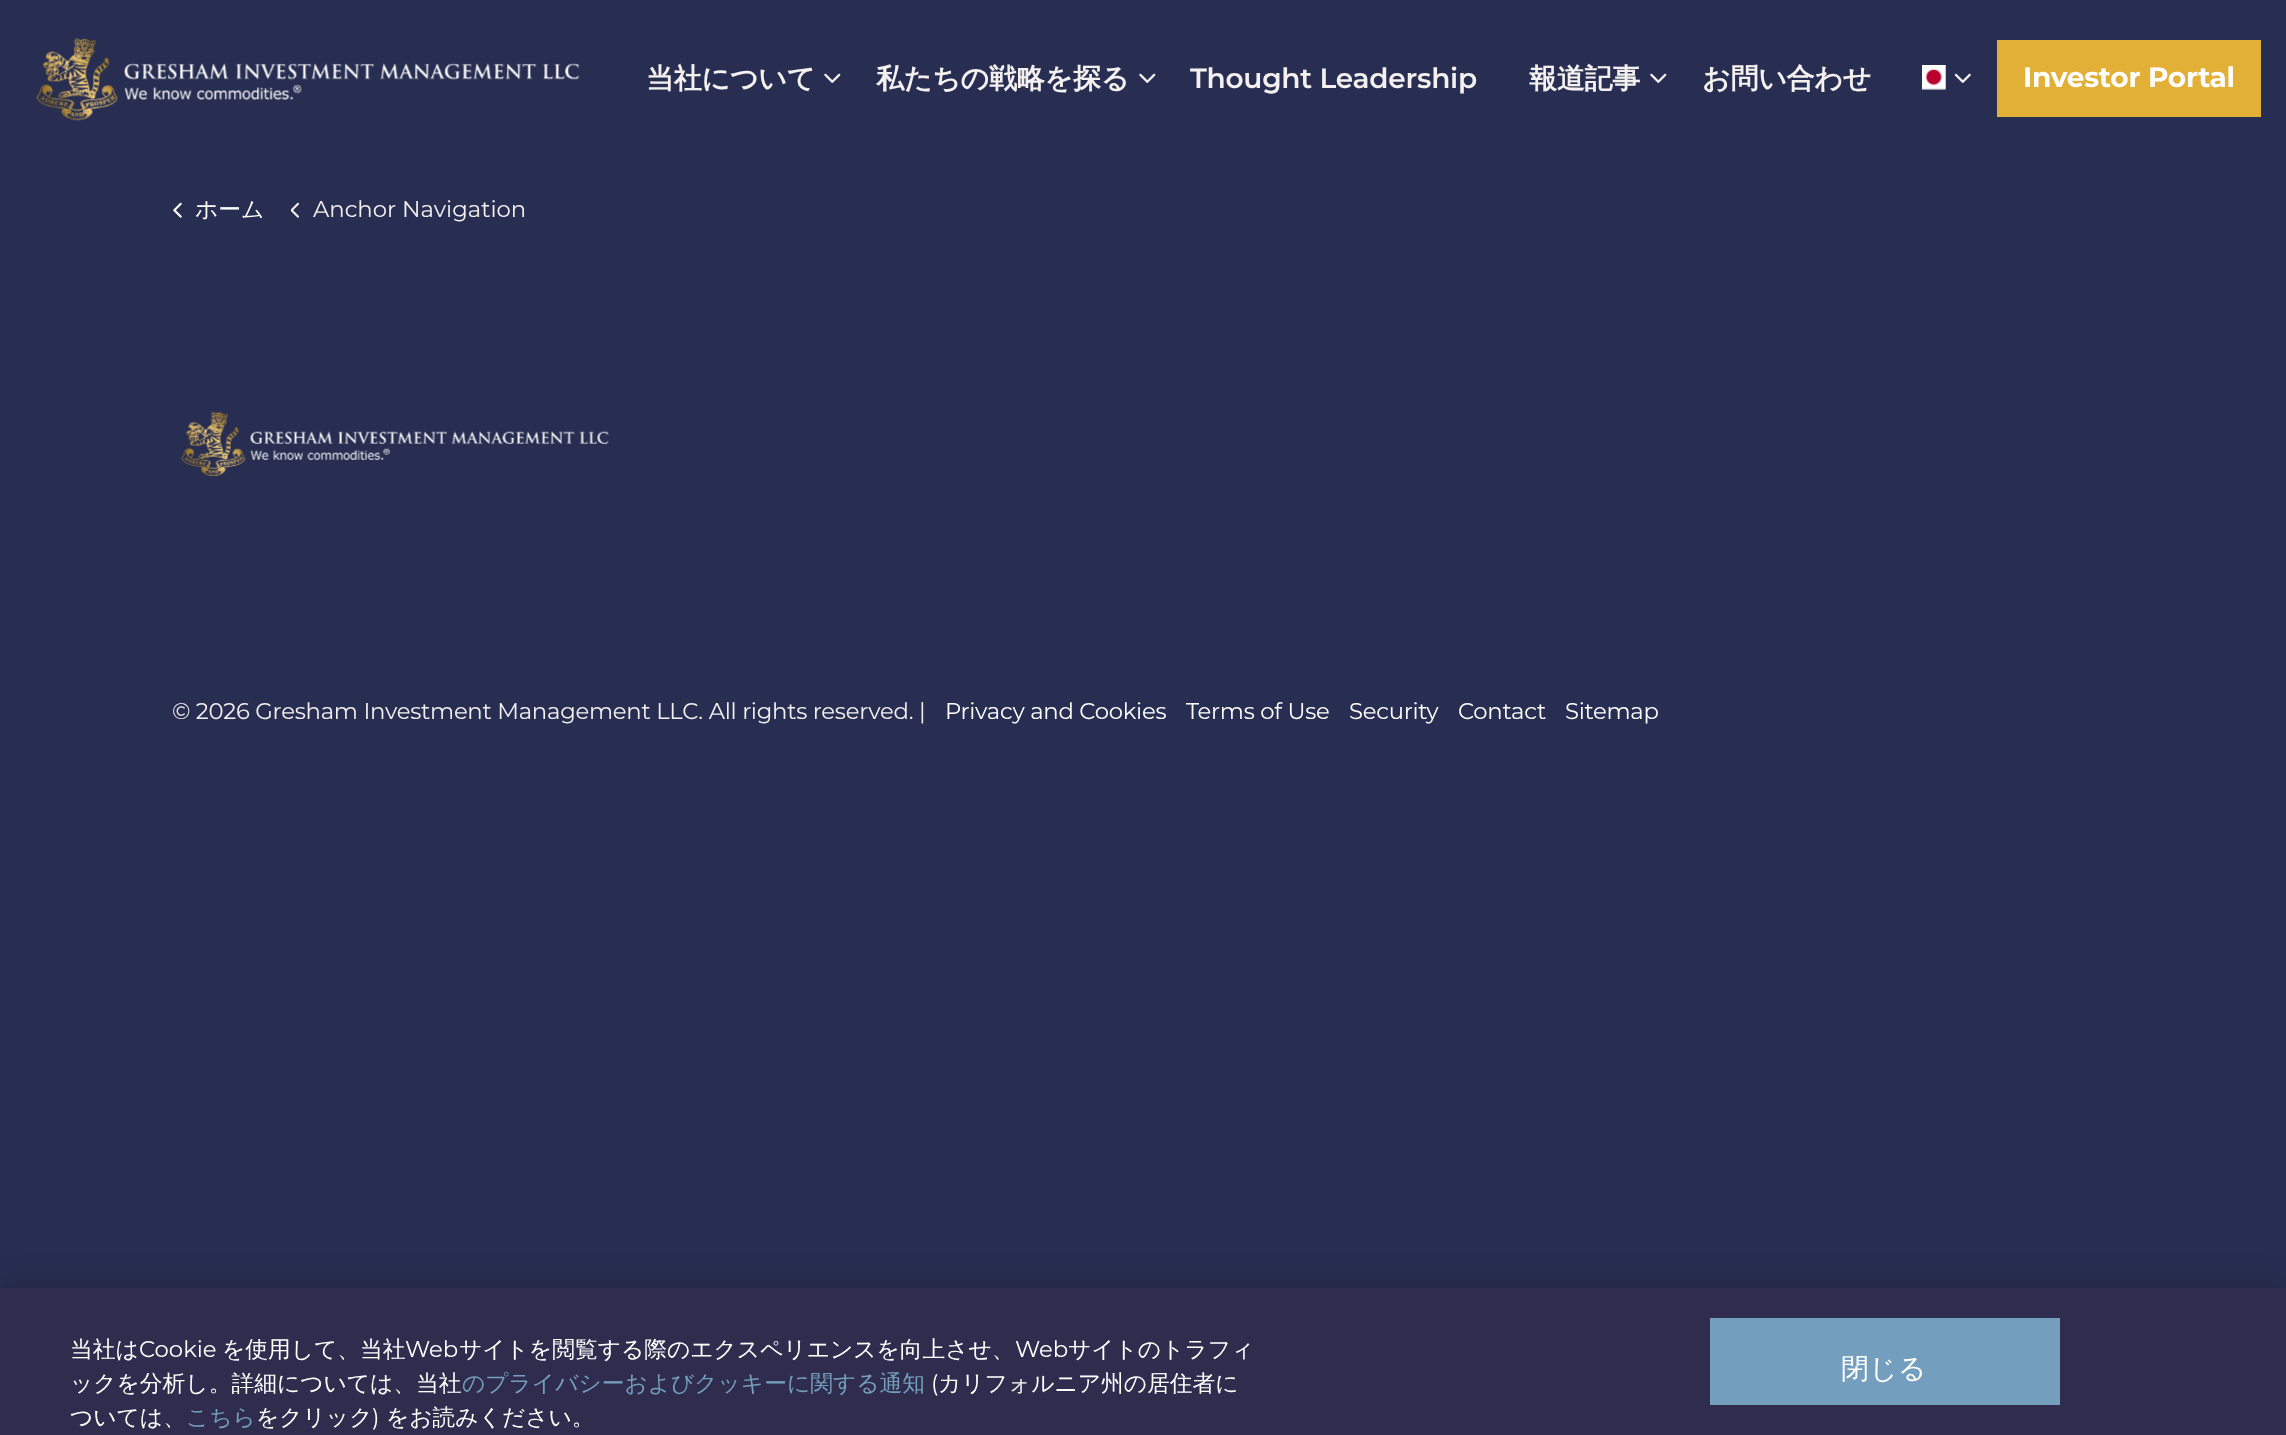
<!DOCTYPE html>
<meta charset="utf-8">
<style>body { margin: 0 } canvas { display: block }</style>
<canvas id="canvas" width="2286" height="1435"></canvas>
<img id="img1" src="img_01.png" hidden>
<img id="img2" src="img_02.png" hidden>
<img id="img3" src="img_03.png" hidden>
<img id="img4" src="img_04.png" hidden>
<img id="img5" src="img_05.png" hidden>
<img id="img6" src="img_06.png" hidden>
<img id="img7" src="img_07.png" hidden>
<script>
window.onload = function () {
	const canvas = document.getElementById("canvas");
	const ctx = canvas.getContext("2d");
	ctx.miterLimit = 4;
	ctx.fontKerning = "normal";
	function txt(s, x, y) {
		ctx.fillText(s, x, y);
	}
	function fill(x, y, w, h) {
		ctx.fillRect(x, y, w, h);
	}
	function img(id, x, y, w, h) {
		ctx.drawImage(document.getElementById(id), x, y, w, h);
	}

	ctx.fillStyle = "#282E51";
	fill(0, 0, 2286, 1435);
	img("img1", 36, 38, 544, 83);
	img("img2", 824, 73, 17, 10);
	img("img2", 1139, 73, 17, 10);
	img("img2", 1650, 73, 17, 10);
	img("img3", 1922, 65, 24, 25);
	img("img4", 1954, 73, 17, 10);
	ctx.fillStyle = "#E3B037";
	fill(1997, 40, 264, 77);
	img("img5", 173, 202, 9, 16);
	img("img6", 291, 202, 8, 16);
	img("img7", 181, 411, 428, 65);
	ctx.fillStyle = "rgba(0, 0, 0, 0.2)";
	ctx.filter = "blur(16px)";
	ctx.beginPath();
	ctx.rect(0, 1288, 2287, 147);
	ctx.fill();
	ctx.filter = "none";
	ctx.fillStyle = "#302C4E";
	fill(0, 1288, 2286, 147);
	ctx.fillStyle = "#739EBD";
	fill(1710, 1318, 350, 87);
	ctx.letterSpacing = "-0.25px";
	ctx.font = "bold 28px WenQuanYi Zen Hei";
	ctx.fillStyle = "#F4F0EF";
	txt("当社について", 646, 88);
	txt("私たちの戦略を探る", 876, 88);
	ctx.font = "600 28px Montserrat";
	txt("Thought Leadership", 1190, 88);
	ctx.font = "bold 28px WenQuanYi Zen Hei";
	txt("報道記事", 1529, 88);
	txt("お問い合わせ", 1702, 88);
	ctx.font = "bold 28px Montserrat";
	ctx.fillStyle = "#FFFFFF";
	txt("Investor Portal", 2023, 87);
	ctx.letterSpacing = "0px";
	ctx.font = "500 22.75px WenQuanYi Zen Hei";
	txt("ホーム", 195, 217);
	ctx.font = "22.75px Montserrat";
	ctx.fillStyle = "#F4F0EF";
	txt("Anchor Navigation", 313, 217);
	ctx.letterSpacing = "-0.25px";
	txt("© 2026 Gresham Investment Management LLC. All rights reserved. |", 172, 719);
	ctx.fillStyle = "#FFFFFF";
	txt("Privacy and Cookies", 945, 719);
	txt("Terms of Use", 1186, 719);
	txt("Security", 1349, 719);
	txt("Contact", 1458, 719);
	txt("Sitemap", 1565, 719);
	ctx.letterSpacing = "0px";
	ctx.font = "500 22.75px WenQuanYi Zen Hei";
	txt("当社は", 70, 1357);
	ctx.font = "22.75px Montserrat";
	txt("Cookie", 139, 1357);
	ctx.font = "500 22.75px WenQuanYi Zen Hei";
	txt("を使用して、当社", 222, 1357);
	ctx.font = "22.75px Montserrat";
	txt("Web", 405, 1357);
	ctx.font = "500 22.75px WenQuanYi Zen Hei";
	txt("サイトを閲覧する際のエクスペリエンスを向上させ、", 459, 1357);
	ctx.font = "22.75px Montserrat";
	txt("Web", 1015, 1357);
	ctx.font = "500 22.75px WenQuanYi Zen Hei";
	txt("サイトのトラフィ", 1068, 1357);
	txt("ックを分析し。詳細については、当社", 70, 1391);
	ctx.fillStyle = "#739EBD";
	txt("のプライバシーおよびクッキーに関する通知", 462, 1391);
	ctx.font = "22.75px Montserrat";
	ctx.fillStyle = "#FFFFFF";
	txt("(", 931, 1391);
	ctx.font = "500 22.75px WenQuanYi Zen Hei";
	txt("カリフォルニア州の居住者に", 938, 1391);
	txt("ついては、", 70, 1425);
	ctx.fillStyle = "#739EBD";
	txt("こちら", 186, 1425);
	ctx.fillStyle = "#FFFFFF";
	txt("をクリック", 256, 1425);
	ctx.font = "22.75px Montserrat";
	txt(")", 372, 1425);
	ctx.font = "500 22.75px WenQuanYi Zen Hei";
	txt("をお読みください。", 386, 1425);
	ctx.font = "500 28px WenQuanYi Zen Hei";
	txt("閉じる", 1841, 1378);
};
</script>
